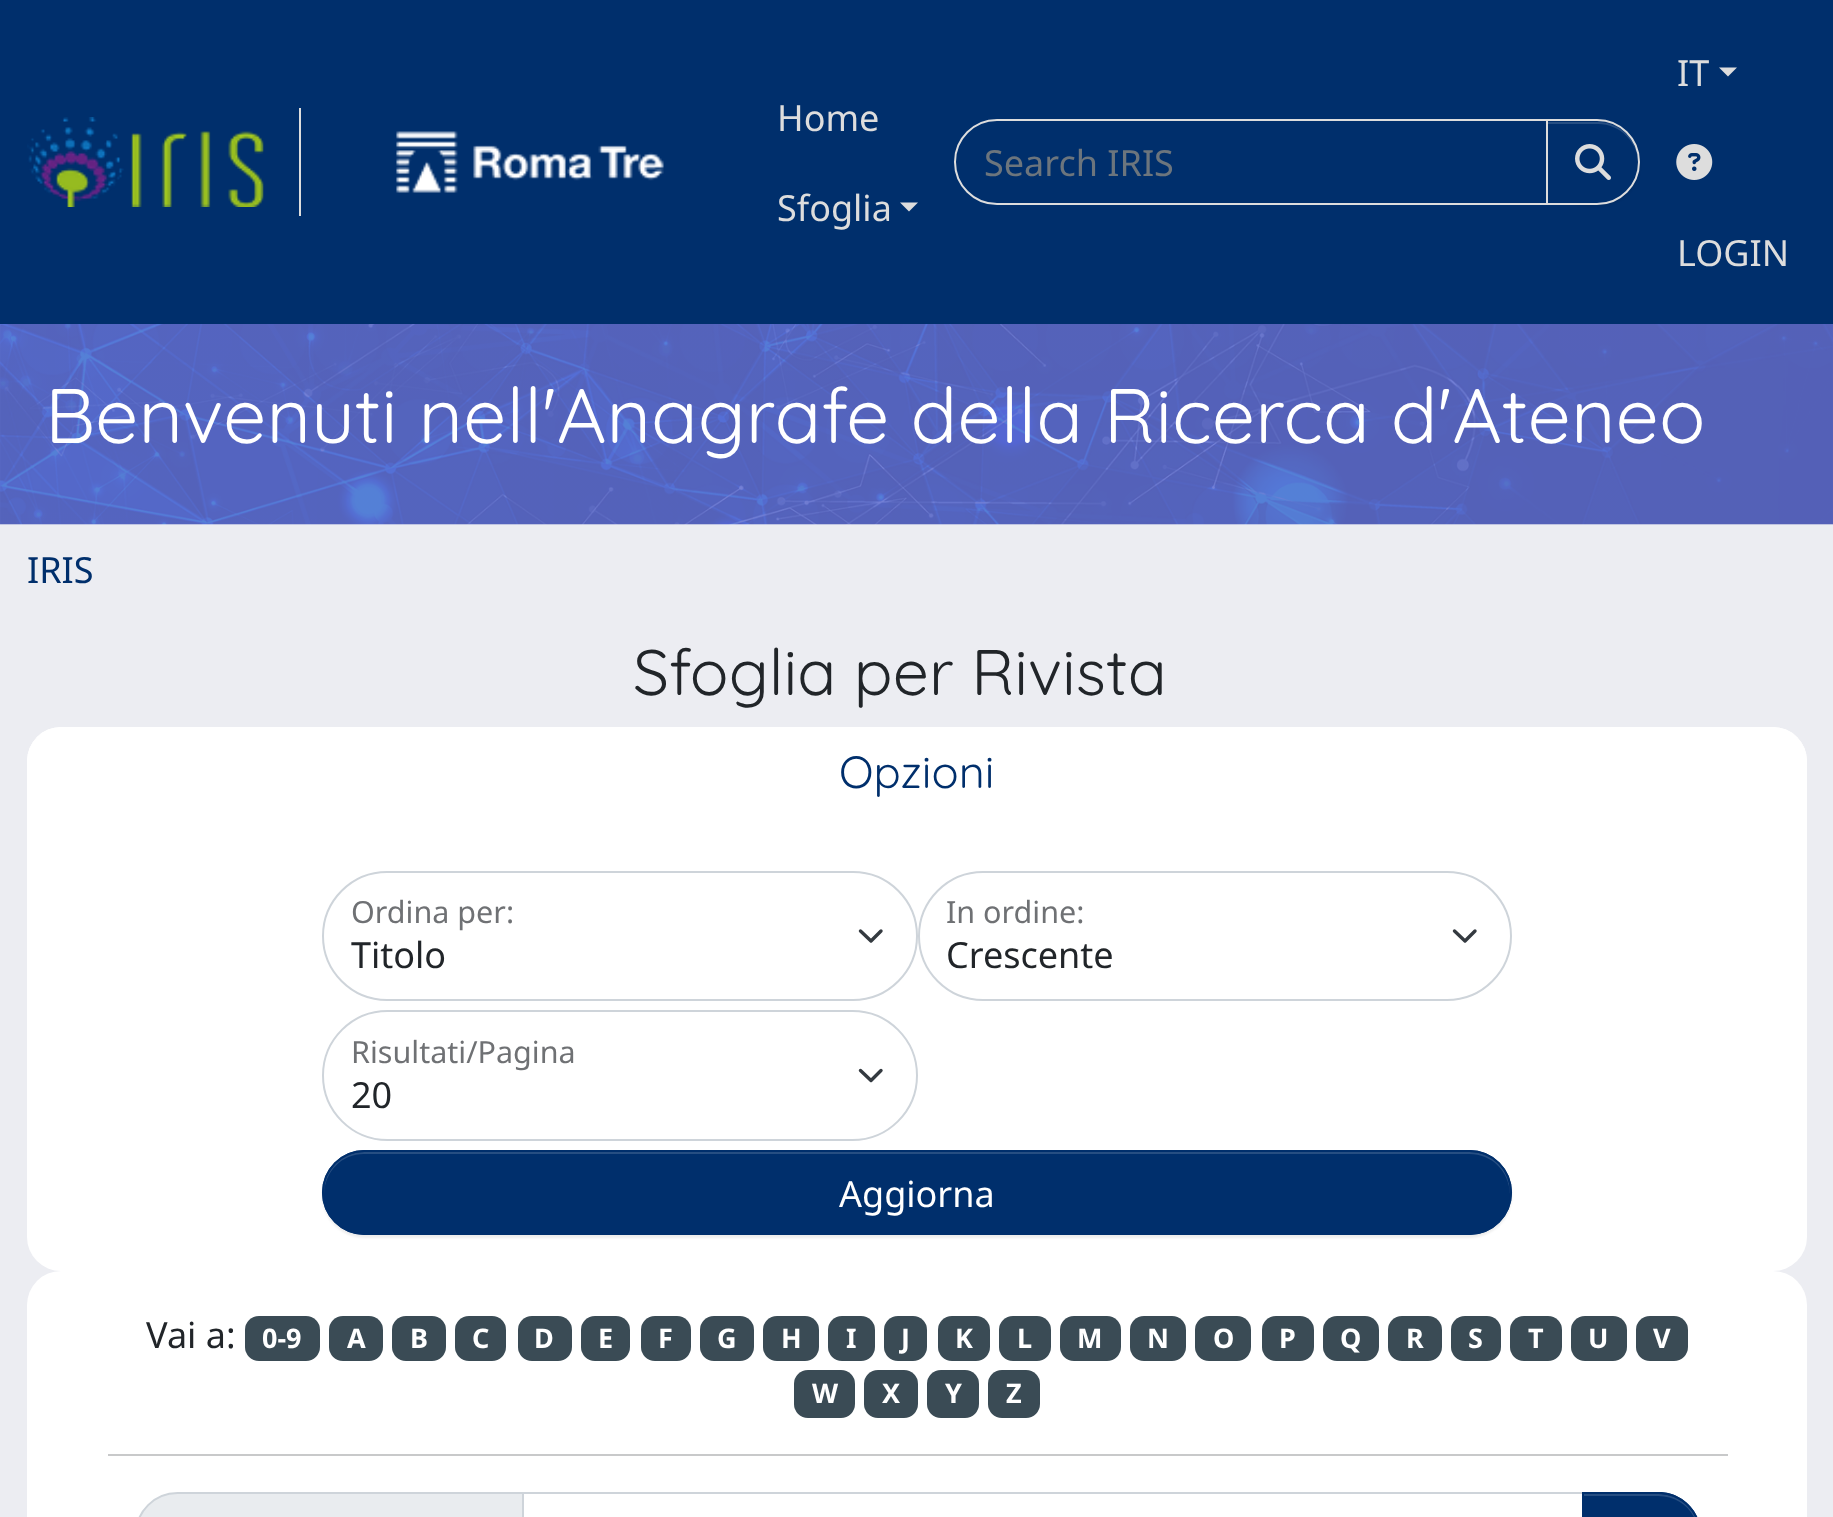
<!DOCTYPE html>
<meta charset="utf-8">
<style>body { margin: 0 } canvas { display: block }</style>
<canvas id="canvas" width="1833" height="1517"></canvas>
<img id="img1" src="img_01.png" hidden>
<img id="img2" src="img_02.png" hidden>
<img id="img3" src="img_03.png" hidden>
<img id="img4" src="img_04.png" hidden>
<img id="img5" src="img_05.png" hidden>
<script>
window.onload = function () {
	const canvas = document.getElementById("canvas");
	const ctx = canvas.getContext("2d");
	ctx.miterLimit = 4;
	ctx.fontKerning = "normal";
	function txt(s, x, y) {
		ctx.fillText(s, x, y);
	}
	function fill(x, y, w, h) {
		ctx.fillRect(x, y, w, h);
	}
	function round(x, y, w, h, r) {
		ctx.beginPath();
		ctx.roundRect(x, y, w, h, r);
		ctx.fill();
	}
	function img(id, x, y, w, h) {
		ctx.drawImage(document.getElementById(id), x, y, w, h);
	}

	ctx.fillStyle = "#ECEDF2";
	fill(0, 0, 1833, 1517);
	ctx.fillStyle = "#002F6C";
	fill(0, 0, 1833, 324);
	ctx.fillStyle = "#DDDDDD";
	fill(299, 108, 2, 108);
	img("img1", 27, 117, 237, 90);
	img("img2", 396, 131, 268, 62);
	ctx.beginPath();
	ctx.moveTo(900, 202.5);
	ctx.lineTo(918, 202.5);
	ctx.lineTo(909, 211.5);
	ctx.closePath();
	ctx.fill();
	ctx.beginPath();
	ctx.roundRect(955, 120, 592, 84, [42, 0, 0, 42]);
	ctx.strokeStyle = "#DDDDDD";
	ctx.lineWidth = 2;
	ctx.stroke();
	ctx.fillStyle = "rgba(0, 0, 0, 0.07)";
	ctx.filter = "blur(1px)";
	ctx.beginPath();
	ctx.roundRect(1546, 122, 94, 85, 42.5);
	ctx.fill();
	ctx.filter = "none";
	ctx.fillStyle = "#002F6C";
	ctx.beginPath();
	ctx.roundRect(1546, 119, 94, 86, [0, 43, 43, 0]);
	ctx.fill();
	ctx.fillStyle = "#264E82";
	ctx.beginPath();
	ctx.moveTo(1548, 124);
	ctx.lineTo(1598, 124);
	ctx.bezierCurveTo(1620, 124, 1638, 142, 1638, 163);
	ctx.lineTo(1638, 162);
	ctx.bezierCurveTo(1638, 140, 1620, 122, 1598, 122);
	ctx.lineTo(1548, 122);
	ctx.closePath();
	ctx.fill();
	ctx.beginPath();
	ctx.roundRect(1547, 120, 92, 84, [0, 42, 42, 0]);
	ctx.stroke();
	img("img3", 1575, 144, 36, 36);
	ctx.fillStyle = "#DDDDDD";
	ctx.beginPath();
	ctx.moveTo(1719, 67.5);
	ctx.lineTo(1737, 67.5);
	ctx.lineTo(1728, 76.5);
	ctx.closePath();
	ctx.fill();
	img("img4", 1676, 144, 37, 36);
	img("img5", 0, 324, 1833, 201);
	ctx.fillStyle = "#FFFFFF";
	round(27, 727, 1780, 544, 34);
	ctx.beginPath();
	ctx.roundRect(27, 727, 1780, 108, [34, 34, 0, 0]);
	ctx.fill();
	ctx.beginPath();
	ctx.moveTo(860.5, 931);
	ctx.lineTo(871, 941);
	ctx.lineTo(881, 931);
	ctx.strokeStyle = "#343A40";
	ctx.lineWidth = 3.4;
	ctx.lineCap = "round";
	ctx.lineJoin = "round";
	ctx.stroke();
	ctx.beginPath();
	ctx.roundRect(323, 872, 594, 128, 64);
	ctx.strokeStyle = "#CED4DA";
	ctx.lineWidth = 2;
	ctx.lineJoin = "miter";
	ctx.stroke();
	ctx.beginPath();
	ctx.moveTo(1454.5, 931);
	ctx.lineTo(1465, 941);
	ctx.lineTo(1475, 931);
	ctx.strokeStyle = "#343A40";
	ctx.lineWidth = 3.4;
	ctx.lineJoin = "round";
	ctx.stroke();
	ctx.beginPath();
	ctx.roundRect(919, 872, 592, 128, 64);
	ctx.strokeStyle = "#CED4DA";
	ctx.lineWidth = 2;
	ctx.lineJoin = "miter";
	ctx.stroke();
	ctx.beginPath();
	ctx.moveTo(860.5, 1070.5);
	ctx.lineTo(871, 1080.5);
	ctx.lineTo(881, 1070.5);
	ctx.strokeStyle = "#343A40";
	ctx.lineWidth = 3.4;
	ctx.lineJoin = "round";
	ctx.stroke();
	ctx.beginPath();
	ctx.roundRect(323, 1011, 594, 129, 64.5);
	ctx.strokeStyle = "#CED4DA";
	ctx.lineWidth = 2;
	ctx.lineJoin = "miter";
	ctx.stroke();
	ctx.fillStyle = "rgba(0, 0, 0, 0.07)";
	ctx.filter = "blur(1px)";
	ctx.beginPath();
	ctx.roundRect(322, 1152, 1190, 86, 43);
	ctx.fill();
	ctx.filter = "none";
	ctx.fillStyle = "#002F6C";
	round(322, 1150, 1190, 85, 42.5);
	ctx.fillStyle = "#264E82";
	ctx.beginPath();
	ctx.moveTo(364, 1154);
	ctx.lineTo(1469, 1154);
	ctx.bezierCurveTo(1492, 1154, 1509, 1171, 1510, 1194);
	ctx.lineTo(1510, 1192);
	ctx.bezierCurveTo(1510, 1170, 1492, 1152, 1470, 1152);
	ctx.lineTo(364, 1152);
	ctx.bezierCurveTo(342, 1152, 324, 1170, 324, 1192);
	ctx.lineTo(324, 1194);
	ctx.bezierCurveTo(325, 1171, 342, 1154, 364, 1154);
	ctx.closePath();
	ctx.fill();
	ctx.beginPath();
	ctx.roundRect(323, 1151, 1188, 83, 41.5);
	ctx.strokeStyle = "#002F6C";
	ctx.stroke();
	ctx.fillStyle = "#FFFFFF";
	round(27, 1271, 1780, 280, 34);
	ctx.fillStyle = "#3A4B55";
	round(245, 1316, 75, 45, 14);
	round(329, 1316, 54, 45, 14);
	round(392, 1316, 54, 45, 14);
	round(455, 1316, 51, 45, 14);
	round(518, 1316, 54, 45, 14);
	round(581, 1316, 49, 45, 14);
	round(641, 1316, 50, 45, 14);
	round(700, 1316, 54, 45, 14);
	round(763, 1316, 56, 45, 14);
	round(828, 1316, 47, 45, 14);
	round(884, 1316, 43, 45, 14);
	round(938, 1316, 52, 45, 14);
	round(999, 1316, 52, 45, 14);
	round(1060, 1316, 61, 45, 14);
	round(1130, 1316, 56, 45, 14);
	round(1195, 1316, 56, 45, 14);
	round(1262, 1316, 52, 45, 14);
	round(1323, 1316, 56, 45, 14);
	round(1388, 1316, 54, 45, 14);
	round(1451, 1316, 50, 45, 14);
	round(1510, 1316, 52, 45, 14);
	round(1571, 1316, 56, 45, 14);
	round(1636, 1316, 52, 45, 14);
	round(794, 1370, 61, 48, 14);
	round(864, 1370, 54, 48, 14);
	round(927, 1370, 52, 48, 14);
	round(988, 1370, 52, 48, 14);
	ctx.fillStyle = "#C8C9CA";
	fill(108, 1454, 1620, 2);
	ctx.fillStyle = "#E9ECEF";
	ctx.beginPath();
	ctx.moveTo(177.5, 1493);
	ctx.lineTo(523, 1493);
	ctx.lineTo(523, 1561);
	ctx.lineTo(177.5, 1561);
	ctx.bezierCurveTo(154.5, 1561, 136, 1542.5, 136, 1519.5);
	ctx.lineTo(136, 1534.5);
	ctx.bezierCurveTo(136, 1511.5, 154.5, 1493, 177.5, 1493);
	ctx.closePath();
	ctx.fill();
	ctx.strokeStyle = "#CED4DA";
	ctx.stroke();
	ctx.strokeRect(523, 1493, 1060, 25);
	ctx.fillStyle = "#002F6C";
	ctx.beginPath();
	ctx.moveTo(1582, 1492);
	ctx.lineTo(1658.5, 1492);
	ctx.bezierCurveTo(1682, 1492, 1701, 1511, 1701, 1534.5);
	ctx.lineTo(1701, 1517.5);
	ctx.bezierCurveTo(1701, 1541, 1682, 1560, 1658.5, 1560);
	ctx.lineTo(1582, 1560);
	ctx.closePath();
	ctx.fill();
	ctx.fillStyle = "#264E82";
	ctx.beginPath();
	ctx.moveTo(1584, 1496);
	ctx.lineTo(1658, 1496);
	ctx.bezierCurveTo(1681, 1496, 1698, 1513, 1699, 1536);
	ctx.lineTo(1699, 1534);
	ctx.bezierCurveTo(1699, 1512, 1681, 1494, 1658, 1494);
	ctx.lineTo(1584, 1494);
	ctx.closePath();
	ctx.fill();
	ctx.beginPath();
	ctx.moveTo(1583, 1493);
	ctx.lineTo(1658.5, 1493);
	ctx.bezierCurveTo(1681.5, 1493, 1700, 1511.5, 1700, 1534.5);
	ctx.lineTo(1700, 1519.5);
	ctx.bezierCurveTo(1700, 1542.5, 1681.5, 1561, 1658.5, 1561);
	ctx.lineTo(1583, 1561);
	ctx.closePath();
	ctx.strokeStyle = "#002F6C";
	ctx.stroke();
	ctx.font = "36px Noto Sans";
	ctx.fillStyle = "#DDDDDD";
	txt("Home", 777, 131);
	txt("Sfoglia", 777, 221);
	ctx.fillStyle = "#6C757D";
	txt("Search IRIS", 984, 176);
	ctx.fillStyle = "#DDDDDD";
	txt("IT", 1677, 86);
	txt("LOGIN", 1677, 266);
	ctx.font = "300 77px Quicksand";
	ctx.fillStyle = "#FFFFFF";
	txt("Benvenuti nell'Anagrafe della Ricerca d'Ateneo", 45, 443);
	ctx.font = "36px Noto Sans";
	ctx.fillStyle = "#002F6C";
	txt("IRIS", 27, 583);
	ctx.font = "300 64.25px Quicksand";
	ctx.fillStyle = "#212529";
	txt("Sfoglia per Rivista", 633, 695);
	ctx.font = "300 45px Quicksand";
	ctx.fillStyle = "#002F6C";
	txt("Opzioni", 839, 788);
	ctx.font = "30.5px Noto Sans";
	ctx.fillStyle = "#6F7174";
	txt("Ordina per:", 351, 923);
	ctx.font = "36px Noto Sans";
	ctx.fillStyle = "#212529";
	txt("Titolo", 351, 968);
	ctx.font = "30.5px Noto Sans";
	ctx.fillStyle = "#6F7174";
	txt("In ordine:", 946, 923);
	ctx.font = "36px Noto Sans";
	ctx.fillStyle = "#212529";
	txt("Crescente", 946, 968);
	ctx.font = "30.5px Noto Sans";
	ctx.fillStyle = "#6F7174";
	txt("Risultati/Pagina", 351, 1063);
	ctx.font = "36px Noto Sans";
	ctx.fillStyle = "#212529";
	txt("20", 351, 1108);
	ctx.fillStyle = "#FFFFFF";
	txt("Aggiorna", 839, 1207);
	ctx.fillStyle = "#212529";
	txt("Vai a:", 146, 1348);
	ctx.font = "bold 27px Noto Sans";
	ctx.fillStyle = "#FFFFFF";
	txt("0-9", 262, 1348);
	txt("A", 347, 1348);
	txt("B", 410, 1348);
	txt("C", 472, 1348);
	txt("D", 534, 1348);
	txt("E", 598, 1348);
	txt("F", 658, 1348);
	txt("G", 717, 1348);
	txt("H", 781, 1348);
	txt("I", 846, 1348);
	txt("J", 901, 1348);
	txt("K", 955, 1348);
	txt("L", 1017, 1348);
	txt("M", 1077, 1348);
	txt("N", 1147, 1348);
	txt("O", 1213, 1348);
	txt("P", 1279, 1348);
	txt("Q", 1340, 1348);
	txt("R", 1406, 1348);
	txt("S", 1468, 1348);
	txt("T", 1528, 1348);
	txt("U", 1588, 1348);
	txt("V", 1653, 1348);
	txt("W", 812, 1403);
	txt("X", 882, 1403);
	txt("Y", 945, 1403);
	txt("Z", 1006, 1403);
};
</script>
